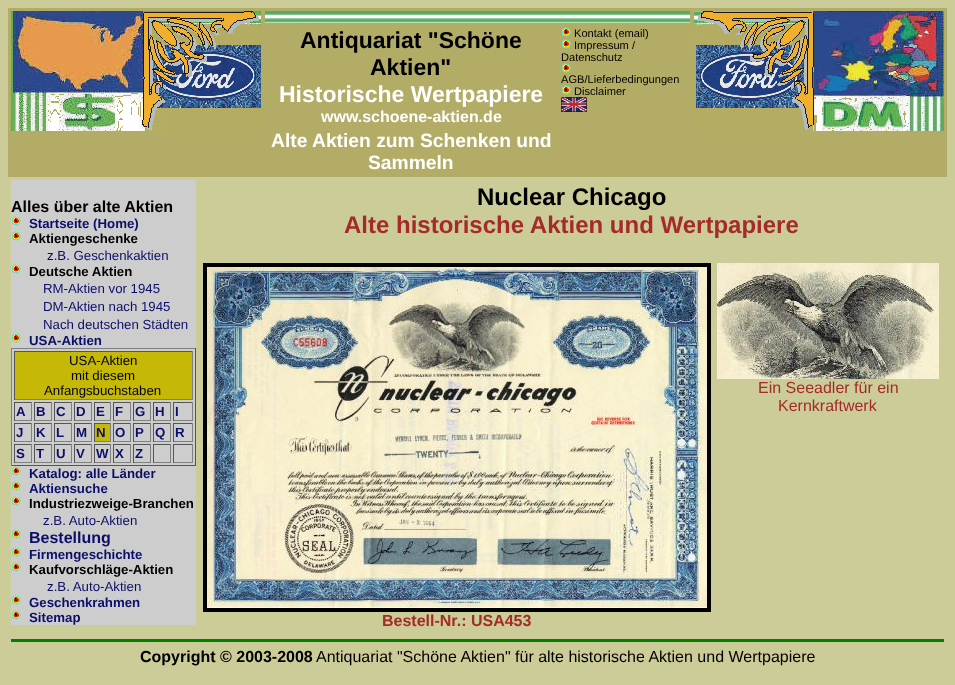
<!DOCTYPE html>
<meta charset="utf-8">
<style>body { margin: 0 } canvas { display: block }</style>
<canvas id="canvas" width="955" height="685"></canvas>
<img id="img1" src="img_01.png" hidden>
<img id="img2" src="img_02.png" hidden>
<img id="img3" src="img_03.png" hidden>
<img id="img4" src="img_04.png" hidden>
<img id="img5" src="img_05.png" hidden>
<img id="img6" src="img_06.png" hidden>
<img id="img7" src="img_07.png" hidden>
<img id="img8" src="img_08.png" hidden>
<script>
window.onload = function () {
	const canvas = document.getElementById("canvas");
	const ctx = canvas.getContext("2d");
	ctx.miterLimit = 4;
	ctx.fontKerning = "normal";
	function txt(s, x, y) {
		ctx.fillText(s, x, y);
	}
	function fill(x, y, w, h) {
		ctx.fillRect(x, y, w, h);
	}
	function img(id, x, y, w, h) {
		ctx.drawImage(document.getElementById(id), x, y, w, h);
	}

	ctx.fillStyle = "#CCCC99";
	fill(0, 0, 955, 685);
	ctx.fillStyle = "#B3AC66";
	fill(8, 8, 939, 169);
	img("img1", 11, 11, 250, 120);
	img("img2", 265, 11, 425, 12);
	img("img3", 694, 11, 250, 120);
	img("img4", 562, 27, 9, 10);
	img("img4", 562, 39, 9, 10);
	img("img4", 562, 63, 9, 10);
	img("img5", 561, 97, 26, 15);
	ctx.fillStyle = "#CDCDCD";
	fill(11, 180, 185, 445);
	img("img6", 12, 216, 9, 10);
	img("img6", 12, 231, 9, 10);
	img("img6", 12, 264, 9, 10);
	img("img6", 12, 333, 9, 10);
	ctx.fillStyle = "#808080";
	fill(11, 348, 185, 1);
	ctx.fillStyle = "#555555";
	fill(195, 348, 1, 118);
	fill(11, 465, 185, 1);
	ctx.fillStyle = "#808080";
	fill(11, 348, 1, 118);
	ctx.fillStyle = "#C6B806";
	fill(15, 352, 177, 47);
	ctx.fillStyle = "#555555";
	fill(14, 351, 179, 1);
	ctx.fillStyle = "#808080";
	fill(192, 351, 1, 49);
	fill(14, 399, 179, 1);
	ctx.fillStyle = "#555555";
	fill(14, 351, 1, 49);
	fill(14, 402, 18, 1);
	ctx.fillStyle = "#808080";
	fill(31, 402, 1, 19);
	fill(14, 420, 18, 1);
	ctx.fillStyle = "#555555";
	fill(14, 402, 1, 19);
	fill(34, 402, 18, 1);
	ctx.fillStyle = "#808080";
	fill(51, 402, 1, 19);
	fill(34, 420, 18, 1);
	ctx.fillStyle = "#555555";
	fill(34, 402, 1, 19);
	fill(54, 402, 18, 1);
	ctx.fillStyle = "#808080";
	fill(71, 402, 1, 19);
	fill(54, 420, 18, 1);
	ctx.fillStyle = "#555555";
	fill(54, 402, 1, 19);
	fill(74, 402, 18, 1);
	ctx.fillStyle = "#808080";
	fill(91, 402, 1, 19);
	fill(74, 420, 18, 1);
	ctx.fillStyle = "#555555";
	fill(74, 402, 1, 19);
	fill(94, 402, 17, 1);
	ctx.fillStyle = "#808080";
	fill(110, 402, 1, 19);
	fill(94, 420, 17, 1);
	ctx.fillStyle = "#555555";
	fill(94, 402, 1, 19);
	fill(113, 402, 18, 1);
	ctx.fillStyle = "#808080";
	fill(130, 402, 1, 19);
	fill(113, 420, 18, 1);
	ctx.fillStyle = "#555555";
	fill(113, 402, 1, 19);
	fill(133, 402, 18, 1);
	ctx.fillStyle = "#808080";
	fill(150, 402, 1, 19);
	fill(133, 420, 18, 1);
	ctx.fillStyle = "#555555";
	fill(133, 402, 1, 19);
	fill(153, 402, 18, 1);
	ctx.fillStyle = "#808080";
	fill(170, 402, 1, 19);
	fill(153, 420, 18, 1);
	ctx.fillStyle = "#555555";
	fill(153, 402, 1, 19);
	fill(173, 402, 20, 1);
	ctx.fillStyle = "#808080";
	fill(192, 402, 1, 19);
	fill(173, 420, 20, 1);
	ctx.fillStyle = "#555555";
	fill(173, 402, 1, 19);
	fill(14, 423, 18, 1);
	ctx.fillStyle = "#808080";
	fill(31, 423, 1, 19);
	fill(14, 441, 18, 1);
	ctx.fillStyle = "#555555";
	fill(14, 423, 1, 19);
	fill(34, 423, 18, 1);
	ctx.fillStyle = "#808080";
	fill(51, 423, 1, 19);
	fill(34, 441, 18, 1);
	ctx.fillStyle = "#555555";
	fill(34, 423, 1, 19);
	fill(54, 423, 18, 1);
	ctx.fillStyle = "#808080";
	fill(71, 423, 1, 19);
	fill(54, 441, 18, 1);
	ctx.fillStyle = "#555555";
	fill(54, 423, 1, 19);
	fill(74, 423, 18, 1);
	ctx.fillStyle = "#808080";
	fill(91, 423, 1, 19);
	fill(74, 441, 18, 1);
	ctx.fillStyle = "#555555";
	fill(74, 423, 1, 19);
	ctx.fillStyle = "#C6B806";
	fill(95, 424, 15, 17);
	ctx.fillStyle = "#555555";
	fill(94, 423, 17, 1);
	ctx.fillStyle = "#808080";
	fill(110, 423, 1, 19);
	fill(94, 441, 17, 1);
	ctx.fillStyle = "#555555";
	fill(94, 423, 1, 19);
	fill(113, 423, 18, 1);
	ctx.fillStyle = "#808080";
	fill(130, 423, 1, 19);
	fill(113, 441, 18, 1);
	ctx.fillStyle = "#555555";
	fill(113, 423, 1, 19);
	fill(133, 423, 18, 1);
	ctx.fillStyle = "#808080";
	fill(150, 423, 1, 19);
	fill(133, 441, 18, 1);
	ctx.fillStyle = "#555555";
	fill(133, 423, 1, 19);
	fill(153, 423, 18, 1);
	ctx.fillStyle = "#808080";
	fill(170, 423, 1, 19);
	fill(153, 441, 18, 1);
	ctx.fillStyle = "#555555";
	fill(153, 423, 1, 19);
	fill(173, 423, 20, 1);
	ctx.fillStyle = "#808080";
	fill(192, 423, 1, 19);
	fill(173, 441, 20, 1);
	ctx.fillStyle = "#555555";
	fill(173, 423, 1, 19);
	fill(14, 444, 18, 1);
	ctx.fillStyle = "#808080";
	fill(31, 444, 1, 19);
	fill(14, 462, 18, 1);
	ctx.fillStyle = "#555555";
	fill(14, 444, 1, 19);
	fill(34, 444, 18, 1);
	ctx.fillStyle = "#808080";
	fill(51, 444, 1, 19);
	fill(34, 462, 18, 1);
	ctx.fillStyle = "#555555";
	fill(34, 444, 1, 19);
	fill(54, 444, 18, 1);
	ctx.fillStyle = "#808080";
	fill(71, 444, 1, 19);
	fill(54, 462, 18, 1);
	ctx.fillStyle = "#555555";
	fill(54, 444, 1, 19);
	fill(74, 444, 18, 1);
	ctx.fillStyle = "#808080";
	fill(91, 444, 1, 19);
	fill(74, 462, 18, 1);
	ctx.fillStyle = "#555555";
	fill(74, 444, 1, 19);
	fill(94, 444, 17, 1);
	ctx.fillStyle = "#808080";
	fill(110, 444, 1, 19);
	fill(94, 462, 17, 1);
	ctx.fillStyle = "#555555";
	fill(94, 444, 1, 19);
	fill(113, 444, 18, 1);
	ctx.fillStyle = "#808080";
	fill(130, 444, 1, 19);
	fill(113, 462, 18, 1);
	ctx.fillStyle = "#555555";
	fill(113, 444, 1, 19);
	fill(133, 444, 18, 1);
	ctx.fillStyle = "#808080";
	fill(150, 444, 1, 19);
	fill(133, 462, 18, 1);
	ctx.fillStyle = "#555555";
	fill(133, 444, 1, 19);
	fill(153, 444, 18, 1);
	ctx.fillStyle = "#808080";
	fill(170, 444, 1, 19);
	fill(153, 462, 18, 1);
	ctx.fillStyle = "#555555";
	fill(153, 444, 1, 19);
	fill(173, 444, 20, 1);
	ctx.fillStyle = "#808080";
	fill(192, 444, 1, 19);
	fill(173, 462, 20, 1);
	ctx.fillStyle = "#555555";
	fill(173, 444, 1, 19);
	img("img6", 12, 466, 9, 10);
	img("img6", 12, 481, 9, 10);
	img("img6", 12, 496, 9, 10);
	img("img6", 12, 529, 9, 10);
	img("img6", 12, 547, 9, 10);
	img("img6", 12, 562, 9, 10);
	img("img6", 12, 595, 9, 10);
	img("img6", 12, 610, 9, 10);
	img("img7", 717, 263, 222, 116);
	ctx.strokeStyle = "#000000";
	ctx.lineWidth = 4;
	ctx.strokeRect(205, 265, 504, 345);
	img("img8", 207, 267, 500, 341);
	ctx.fillStyle = "#008000";
	fill(11, 639, 933, 3);
	ctx.font = "bold 23px Liberation Sans";
	ctx.fillStyle = "#000000";
	txt("Antiquariat \"Schöne", 300, 48);
	txt("Aktien\"", 370, 75);
	ctx.fillStyle = "#FFFFFF";
	txt("Historische Wertpapiere", 279, 102);
	ctx.font = "bold 16px Liberation Sans";
	txt("www.schoene-aktien.de", 321, 122);
	ctx.font = "11.1px Liberation Sans";
	ctx.fillStyle = "#000000";
	txt("Kontakt (email)", 574, 37);
	txt("Impressum /", 574, 49);
	txt("Datenschutz", 561, 61);
	txt("AGB/Lieferbedingungen", 561, 83);
	img("img4", 562, 85, 9, 10);
	txt("Disclaimer", 574, 95);
	ctx.font = "bold 19.25px Liberation Sans";
	ctx.fillStyle = "#FFFFFF";
	txt("Alte Aktien zum Schenken und", 271, 147);
	txt("Sammeln", 368, 169);
	ctx.font = "bold 16px Liberation Sans";
	ctx.fillStyle = "#000000";
	txt("Alles über alte Aktien", 11, 212);
	ctx.font = "bold 13.25px Liberation Sans";
	ctx.fillStyle = "#0B0E6A";
	txt("Startseite (Home)", 29, 228);
	ctx.fillStyle = "#000000";
	txt("Aktiengeschenke", 29, 243);
	ctx.font = "13.25px Liberation Sans";
	ctx.fillStyle = "#0B0E6A";
	txt("z.B. Geschenkaktien", 47, 260);
	ctx.font = "bold 13.25px Liberation Sans";
	ctx.fillStyle = "#000000";
	txt("Deutsche Aktien", 29, 276);
	ctx.font = "13.25px Liberation Sans";
	ctx.fillStyle = "#0B0E6A";
	txt("RM-Aktien vor 1945", 43, 293);
	txt("DM-Aktien nach 1945", 43, 311);
	txt("Nach deutschen Städten", 43, 329);
	ctx.font = "bold 13.25px Liberation Sans";
	txt("USA-Aktien", 29, 345);
	ctx.font = "13.25px Liberation Sans";
	ctx.fillStyle = "#000000";
	txt("USA-Aktien", 69, 365);
	txt("mit diesem", 71, 380);
	txt("Anfangsbuchstaben", 44, 395);
	ctx.font = "bold 13.25px Liberation Sans";
	ctx.fillStyle = "#0B0E6A";
	txt("A", 16, 416);
	txt("B", 36, 416);
	txt("C", 56, 416);
	txt("D", 76, 416);
	txt("E", 96, 416);
	txt("F", 115, 416);
	txt("G", 135, 416);
	txt("H", 155, 416);
	txt("I", 175, 416);
	txt("J", 16, 437);
	txt("K", 36, 437);
	txt("L", 56, 437);
	txt("M", 76, 437);
	txt("N", 96, 437);
	txt("O", 115, 437);
	txt("P", 135, 437);
	txt("Q", 155, 437);
	txt("R", 175, 437);
	txt("S", 16, 458);
	txt("T", 36, 458);
	txt("U", 56, 458);
	txt("V", 76, 458);
	txt("W", 96, 458);
	txt("X", 115, 458);
	txt("Z", 135, 458);
	txt("Katalog: alle Länder", 29, 478);
	txt("Aktiensuche", 29, 493);
	ctx.fillStyle = "#000000";
	txt("Industriezweige-Branchen", 29, 508);
	ctx.font = "13.25px Liberation Sans";
	ctx.fillStyle = "#0B0E6A";
	txt("z.B. Auto-Aktien", 43, 525);
	ctx.font = "bold 16px Liberation Sans";
	txt("Bestellung", 29, 543);
	ctx.font = "bold 13.25px Liberation Sans";
	txt("Firmengeschichte", 29, 559);
	ctx.fillStyle = "#000000";
	txt("Kaufvorschläge-Aktien", 29, 574);
	ctx.font = "13.25px Liberation Sans";
	ctx.fillStyle = "#0B0E6A";
	txt("z.B. Auto-Aktien", 47, 591);
	ctx.font = "bold 13.25px Liberation Sans";
	txt("Geschenkrahmen", 29, 607);
	txt("Sitemap", 29, 622);
	ctx.font = "bold 24px Liberation Sans";
	ctx.fillStyle = "#000000";
	txt("Nuclear Chicago", 477, 205);
	ctx.fillStyle = "#A52A2A";
	txt("Alte historische Aktien und Wertpapiere", 344, 233);
	ctx.font = "16px Liberation Sans";
	txt("Ein Seeadler für ein", 758, 393);
	txt("Kernkraftwerk", 778, 411);
	ctx.font = "bold 16px Liberation Sans";
	txt("Bestell-Nr.: USA453", 382, 626);
	ctx.fillStyle = "#000000";
	txt("Copyright © 2003-2008", 140, 662);
	ctx.font = "16px Liberation Sans";
	txt("Antiquariat \"Schöne Aktien\" für alte historische Aktien und Wertpapiere", 316, 662);
};
</script>
